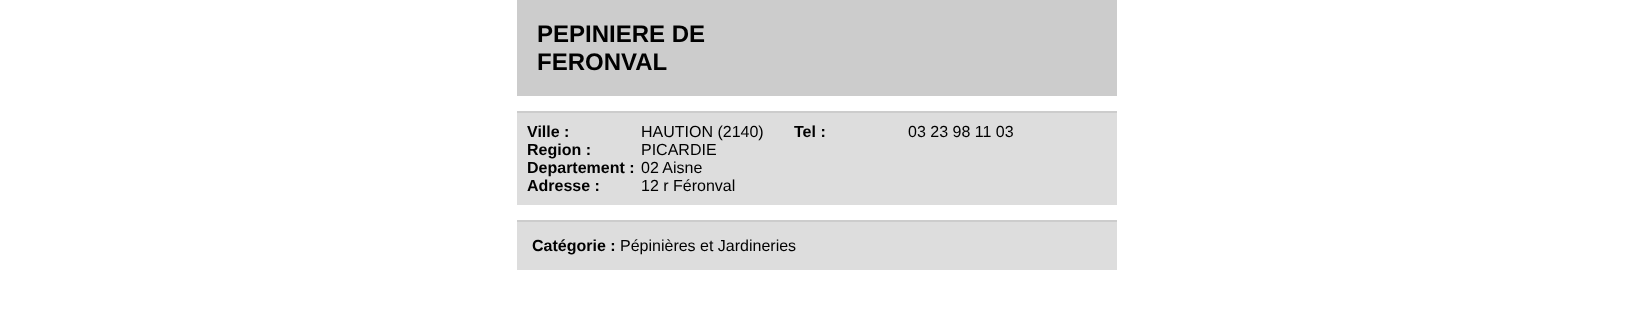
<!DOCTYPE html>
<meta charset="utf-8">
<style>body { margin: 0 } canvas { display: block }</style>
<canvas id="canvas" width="1633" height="318"></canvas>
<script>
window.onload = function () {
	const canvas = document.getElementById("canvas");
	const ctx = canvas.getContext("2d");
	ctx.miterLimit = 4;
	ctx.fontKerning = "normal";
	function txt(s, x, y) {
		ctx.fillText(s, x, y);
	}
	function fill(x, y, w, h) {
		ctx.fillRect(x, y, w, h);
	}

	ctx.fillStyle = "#FFFFFF";
	fill(0, 0, 1633, 318);
	ctx.fillStyle = "#CCCCCC";
	fill(517, 0, 600, 96);
	ctx.fillStyle = "#DDDDDD";
	fill(517, 113, 600, 92);
	ctx.fillStyle = "#CCCCCC";
	fill(517, 111, 600, 2);
	ctx.fillStyle = "#DDDDDD";
	fill(517, 222, 600, 48);
	ctx.fillStyle = "#CCCCCC";
	fill(517, 220, 600, 2);
	ctx.font = "bold 24px Liberation Sans";
	ctx.fillStyle = "#000000";
	txt("PEPINIERE DE", 537, 42);
	txt("FERONVAL", 537, 70);
	ctx.font = "bold 16px Liberation Sans";
	txt("Ville :", 527, 137);
	ctx.font = "16px Liberation Sans";
	txt("HAUTION (2140)", 641, 137);
	ctx.font = "bold 16px Liberation Sans";
	txt("Region :", 527, 155);
	ctx.font = "16px Liberation Sans";
	txt("PICARDIE", 641, 155);
	ctx.font = "bold 16px Liberation Sans";
	txt("Departement :", 527, 173);
	ctx.font = "16px Liberation Sans";
	txt("02 Aisne", 641, 173);
	ctx.font = "bold 16px Liberation Sans";
	txt("Adresse :", 527, 191);
	ctx.font = "16px Liberation Sans";
	txt("12 r Féronval", 641, 191);
	ctx.font = "bold 16px Liberation Sans";
	txt("Tel :", 794, 137);
	ctx.font = "16px Liberation Sans";
	txt("03 23 98 11 03", 908, 137);
	ctx.font = "bold 16px Liberation Sans";
	txt("Catégorie :", 532, 251);
	ctx.font = "16px Liberation Sans";
	txt("Pépinières et Jardineries", 620, 251);
};
</script>
